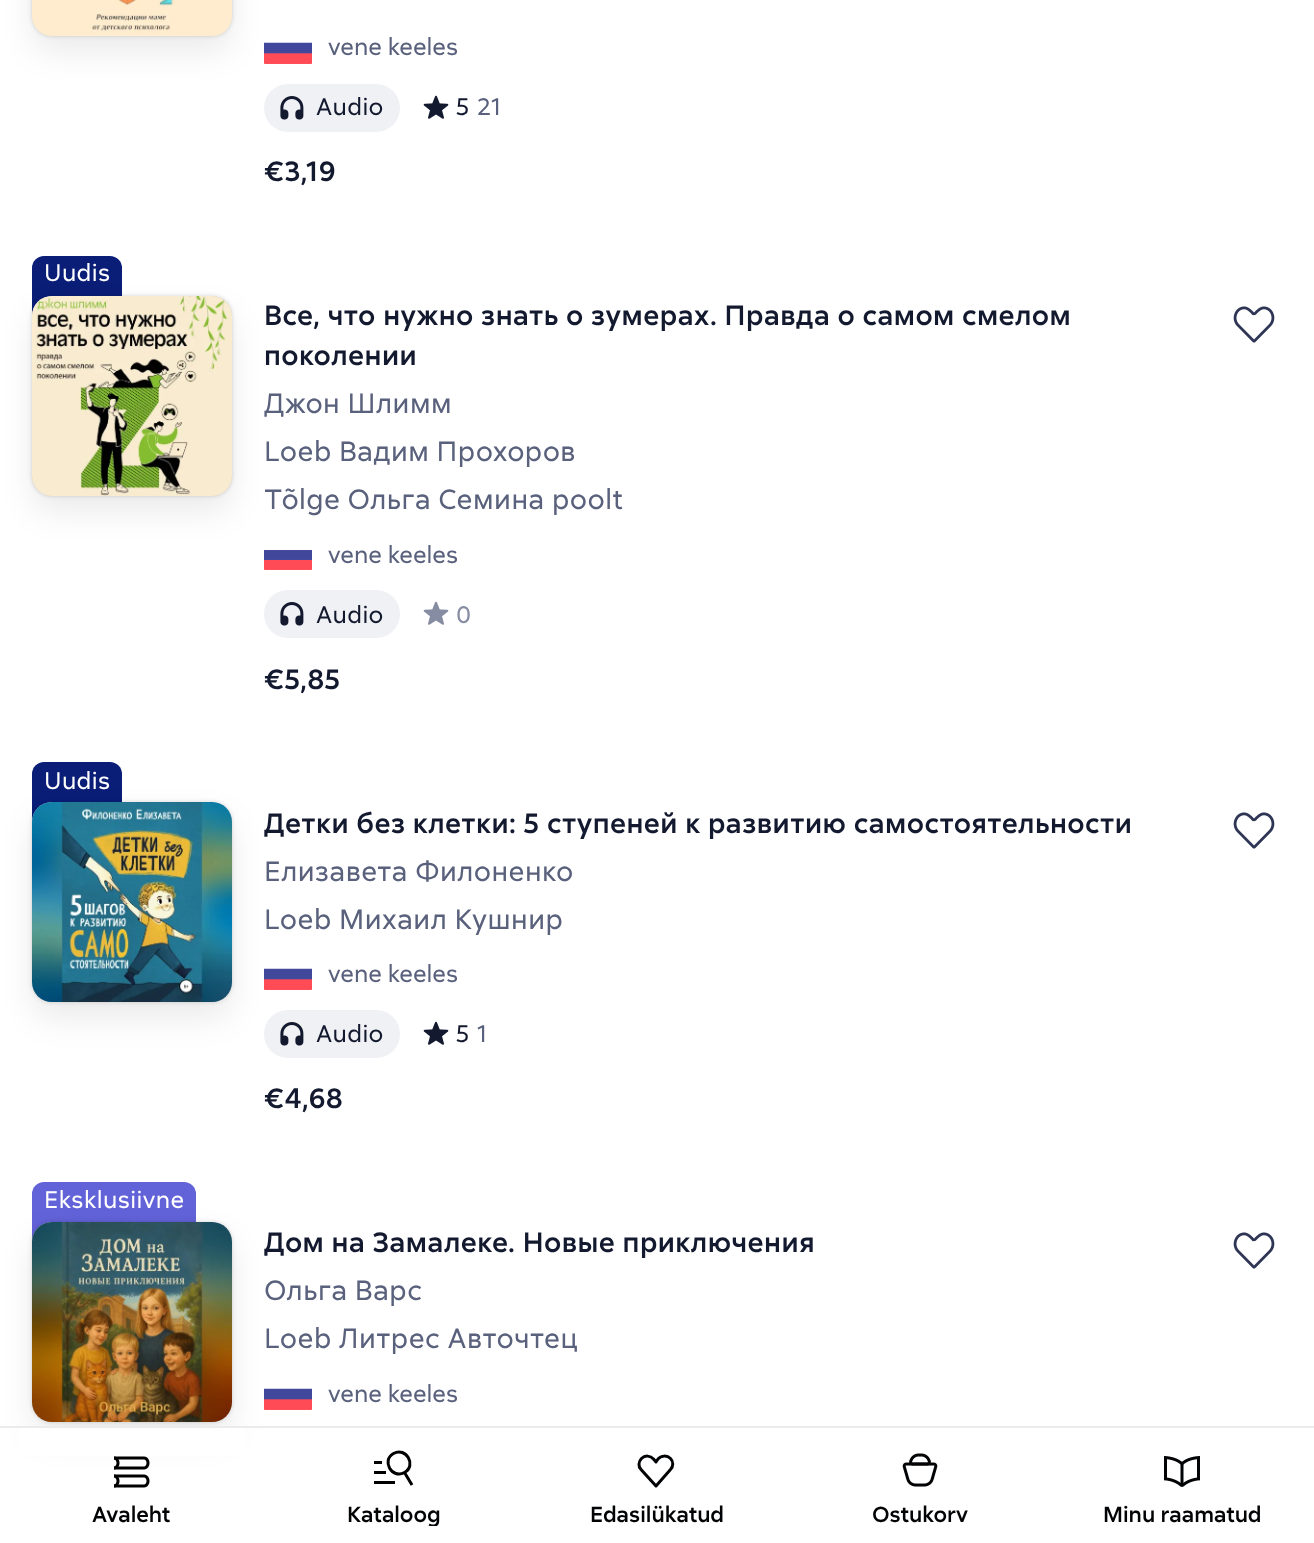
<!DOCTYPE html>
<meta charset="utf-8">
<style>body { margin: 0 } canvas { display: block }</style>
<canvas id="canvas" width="1314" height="1543"></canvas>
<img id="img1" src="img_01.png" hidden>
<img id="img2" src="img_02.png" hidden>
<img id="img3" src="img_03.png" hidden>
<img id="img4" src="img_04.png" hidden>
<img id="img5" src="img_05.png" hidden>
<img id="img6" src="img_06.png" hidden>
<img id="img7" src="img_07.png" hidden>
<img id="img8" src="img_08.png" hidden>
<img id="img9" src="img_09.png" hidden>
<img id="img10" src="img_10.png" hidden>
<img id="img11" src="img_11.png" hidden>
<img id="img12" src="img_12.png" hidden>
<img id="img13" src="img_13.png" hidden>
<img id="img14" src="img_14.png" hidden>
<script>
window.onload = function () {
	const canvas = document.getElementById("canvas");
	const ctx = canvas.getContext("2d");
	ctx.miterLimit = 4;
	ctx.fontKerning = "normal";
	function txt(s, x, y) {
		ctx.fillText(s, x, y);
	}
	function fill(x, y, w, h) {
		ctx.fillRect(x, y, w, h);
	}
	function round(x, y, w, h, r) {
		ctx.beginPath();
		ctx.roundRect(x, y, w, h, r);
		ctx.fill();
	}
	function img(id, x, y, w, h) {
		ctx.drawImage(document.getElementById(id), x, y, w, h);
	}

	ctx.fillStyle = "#FFFFFF";
	fill(0, 0, 1314, 1543);
	ctx.fillStyle = "rgba(0, 0, 0, 0.08)";
	ctx.filter = "blur(16px)";
	ctx.beginPath();
	ctx.roundRect(32, -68, 200, 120, 20);
	ctx.fill();
	ctx.filter = "none";
	ctx.fillStyle = "rgba(0, 0, 0, 0.16)";
	ctx.filter = "blur(2px)";
	ctx.beginPath();
	ctx.roundRect(32, -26, 200, 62, 20);
	ctx.fill();
	ctx.filter = "none";
	img("img1", 32, 0, 200, 36);
	img("img2", 264, 42, 48, 22);
	ctx.fillStyle = "#F0F1F5";
	round(264, 84, 136, 48, 24);
	img("img3", 280, 96, 24, 24);
	img("img4", 423, 95, 26, 24);
	ctx.fillStyle = "#0A1E78";
	ctx.beginPath();
	ctx.roundRect(32, 256, 90, 60, [12, 12, 0, 0]);
	ctx.fill();
	ctx.fillStyle = "#E2E4EA";
	round(32, 296, 200, 200, 20);
	ctx.fillStyle = "rgba(0, 0, 0, 0.08)";
	ctx.filter = "blur(16px)";
	ctx.beginPath();
	ctx.roundRect(32, 312, 200, 200, 20);
	ctx.fill();
	ctx.filter = "none";
	ctx.fillStyle = "rgba(0, 0, 0, 0.16)";
	ctx.filter = "blur(2px)";
	ctx.beginPath();
	ctx.roundRect(32, 296, 200, 200, 20);
	ctx.fill();
	ctx.filter = "none";
	img("img5", 32, 296, 200, 200);
	img("img6", 1233, 306, 42, 37);
	img("img7", 264, 550, 48, 20);
	ctx.fillStyle = "#F0F1F5";
	round(264, 590, 136, 48, 24);
	img("img3", 280, 602, 24, 24);
	img("img8", 423, 601, 26, 24);
	ctx.fillStyle = "#0A1E78";
	ctx.beginPath();
	ctx.roundRect(32, 762, 90, 60, [12, 12, 0, 0]);
	ctx.fill();
	ctx.fillStyle = "#E2E4EA";
	round(32, 802, 200, 200, 20);
	ctx.fillStyle = "rgba(0, 0, 0, 0.08)";
	ctx.filter = "blur(16px)";
	ctx.beginPath();
	ctx.roundRect(32, 818, 200, 200, 20);
	ctx.fill();
	ctx.filter = "none";
	ctx.fillStyle = "rgba(0, 0, 0, 0.16)";
	ctx.filter = "blur(2px)";
	ctx.beginPath();
	ctx.roundRect(32, 802, 200, 200, 20);
	ctx.fill();
	ctx.filter = "none";
	img("img9", 32, 802, 200, 200);
	img("img6", 1233, 812, 42, 37);
	img("img2", 264, 968, 48, 22);
	ctx.fillStyle = "#F0F1F4";
	round(264, 1010, 136, 48, 24);
	img("img10", 280, 1022, 24, 24);
	img("img4", 423, 1021, 26, 24);
	ctx.fillStyle = "#6262D9";
	ctx.beginPath();
	ctx.roundRect(32, 1182, 164, 60, [12, 12, 0, 0]);
	ctx.fill();
	ctx.fillStyle = "#E2E4EA";
	round(32, 1222, 200, 200, 20);
	ctx.fillStyle = "rgba(0, 0, 0, 0.08)";
	ctx.filter = "blur(16px)";
	ctx.beginPath();
	ctx.roundRect(32, 1238, 200, 200, 20);
	ctx.fill();
	ctx.filter = "none";
	ctx.fillStyle = "rgba(0, 0, 0, 0.16)";
	ctx.filter = "blur(2px)";
	ctx.beginPath();
	ctx.roundRect(32, 1222, 200, 200, 20);
	ctx.fill();
	ctx.filter = "none";
	img("img11", 32, 1222, 200, 200);
	img("img6", 1233, 1232, 42, 37);
	img("img2", 264, 1388, 48, 22);
	ctx.fillStyle = "#FFFFFF";
	fill(19, 1428, 226, 28);
	ctx.fillStyle = "#EBEBEB";
	fill(0, 1426, 1314, 2);
	img("img12", 114, 1456, 36, 32);
	ctx.beginPath();
	ctx.moveTo(393.5, 1453.5);
	ctx.bezierCurveTo(406, 1446.5, 417, 1465.5, 404.5, 1472.5);
	ctx.bezierCurveTo(392, 1479.5, 381, 1460.5, 393.5, 1453.5);
	ctx.closePath();
	ctx.moveTo(404.5, 1472.5);
	ctx.lineTo(412, 1485);
	ctx.strokeStyle = "#000000";
	ctx.lineWidth = 3;
	ctx.stroke();
	ctx.fillStyle = "#000000";
	fill(374, 1461, 8, 3);
	fill(374, 1471, 12, 3);
	fill(374, 1481, 21, 3);
	ctx.beginPath();
	ctx.moveTo(670.5, 1458.5);
	ctx.bezierCurveTo(673.5, 1461.5, 673.5, 1466.5, 670.5, 1469.5);
	ctx.lineTo(656, 1486);
	ctx.lineTo(641, 1469.5);
	ctx.bezierCurveTo(638, 1466.5, 638.5, 1461.5, 641.5, 1458.5);
	ctx.bezierCurveTo(645, 1455, 650.5, 1455.5, 653.5, 1459);
	ctx.lineTo(656, 1462);
	ctx.lineTo(658, 1459);
	ctx.bezierCurveTo(661, 1455.5, 667, 1455, 670.5, 1458.5);
	ctx.closePath();
	ctx.strokeStyle = "#020305";
	ctx.lineCap = "round";
	ctx.lineJoin = "round";
	ctx.stroke();
	img("img13", 902, 1453, 36, 34);
	img("img14", 1164, 1456, 36, 31);
	ctx.font = "24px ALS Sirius";
	ctx.fillStyle = "#5A617C";
	txt("vene keeles", 328, 55);
	ctx.letterSpacing = "0.4px";
	ctx.fillStyle = "#13192E";
	txt("Audio", 316, 115);
	ctx.letterSpacing = "0px";
	txt("5", 456, 115);
	ctx.fillStyle = "#5A617C";
	txt("21", 477, 115);
	ctx.letterSpacing = "0.5px";
	ctx.font = "500 28px ALS Sirius";
	ctx.fillStyle = "#13192E";
	txt("€3,19", 264, 181);
	ctx.letterSpacing = "0.4px";
	ctx.font = "24px ALS Sirius";
	ctx.fillStyle = "#FFFFFF";
	txt("Uudis", 44, 281);
	ctx.letterSpacing = "0.5px";
	ctx.font = "500 28px ALS Sirius";
	ctx.fillStyle = "#13192E";
	txt("Все, что нужно знать о зумерах. Правда о самом смелом", 264, 325);
	txt("поколении", 264, 365);
	ctx.font = "28px ALS Sirius";
	ctx.fillStyle = "#5A617C";
	txt("Джон Шлимм", 264, 413);
	txt("Loeb Вадим Прохоров", 264, 461);
	txt("Tõlge Ольга Семина poolt", 264, 509);
	ctx.letterSpacing = "0px";
	ctx.font = "24px ALS Sirius";
	txt("vene keeles", 328, 563);
	ctx.letterSpacing = "0.4px";
	ctx.fillStyle = "#13192E";
	txt("Audio", 316, 623);
	ctx.letterSpacing = "0px";
	ctx.fillStyle = "#868CA2";
	txt("0", 456, 623);
	ctx.letterSpacing = "0.5px";
	ctx.font = "500 28px ALS Sirius";
	ctx.fillStyle = "#13192E";
	txt("€5,85", 264, 689);
	ctx.letterSpacing = "0.4px";
	ctx.font = "24px ALS Sirius";
	ctx.fillStyle = "#FFFFFF";
	txt("Uudis", 44, 789);
	ctx.letterSpacing = "0.5px";
	ctx.font = "500 28px ALS Sirius";
	ctx.fillStyle = "#13192E";
	txt("Детки без клетки: 5 ступеней к развитию самостоятельности", 264, 833);
	ctx.font = "28px ALS Sirius";
	ctx.fillStyle = "#5A617C";
	txt("Елизавета Филоненко", 264, 881);
	txt("Loeb Михаил Кушнир", 264, 929);
	ctx.letterSpacing = "0px";
	ctx.font = "24px ALS Sirius";
	txt("vene keeles", 328, 982);
	ctx.letterSpacing = "0.4px";
	ctx.fillStyle = "#13192E";
	txt("Audio", 316, 1042);
	ctx.letterSpacing = "0px";
	txt("5", 456, 1042);
	ctx.fillStyle = "#5A617C";
	txt("1", 477, 1042);
	ctx.letterSpacing = "0.5px";
	ctx.font = "500 28px ALS Sirius";
	ctx.fillStyle = "#13192E";
	txt("€4,68", 264, 1108);
	ctx.letterSpacing = "0.4px";
	ctx.font = "24px ALS Sirius";
	ctx.fillStyle = "#FFFFFF";
	txt("Eksklusiivne", 44, 1208);
	ctx.letterSpacing = "0.5px";
	ctx.font = "500 28px ALS Sirius";
	ctx.fillStyle = "#13192E";
	txt("Дом на Замалеке. Новые приключения", 264, 1252);
	ctx.font = "28px ALS Sirius";
	ctx.fillStyle = "#5A617C";
	txt("Ольга Варс", 264, 1300);
	txt("Loeb Литрес Авточтец", 264, 1348);
	ctx.letterSpacing = "0px";
	ctx.font = "24px ALS Sirius";
	txt("vene keeles", 328, 1402);
	ctx.font = "500 22px ALS Sirius";
	ctx.fillStyle = "#020305";
	txt("Avaleht", 92, 1522);
	ctx.save();
	ctx.beginPath();
	ctx.rect(262, 1502, 264, 24);
	ctx.clip();
	txt("Kataloog", 347, 1522);
	ctx.restore();
	txt("Edasilükatud", 590, 1522);
	txt("Ostukorv", 872, 1522);
	txt("Minu raamatud", 1103, 1522);
};
</script>
